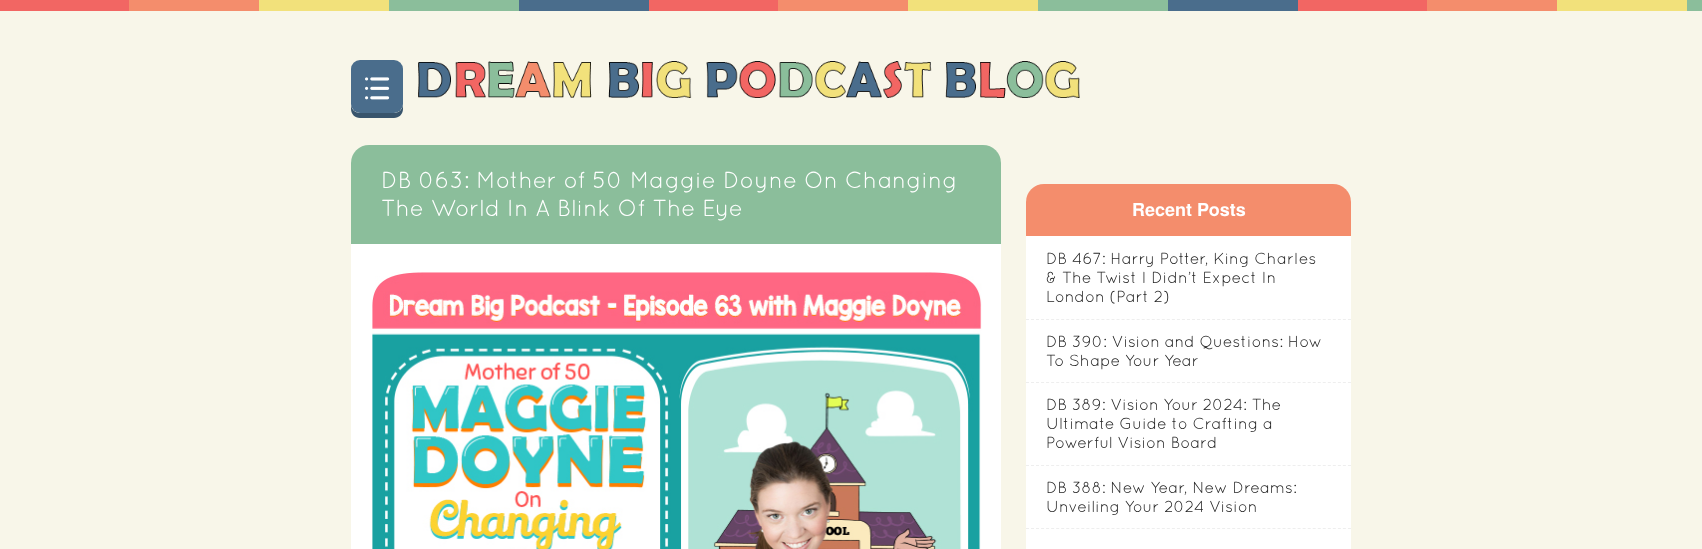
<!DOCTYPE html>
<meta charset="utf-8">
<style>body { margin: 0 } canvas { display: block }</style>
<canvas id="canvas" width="1702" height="549"></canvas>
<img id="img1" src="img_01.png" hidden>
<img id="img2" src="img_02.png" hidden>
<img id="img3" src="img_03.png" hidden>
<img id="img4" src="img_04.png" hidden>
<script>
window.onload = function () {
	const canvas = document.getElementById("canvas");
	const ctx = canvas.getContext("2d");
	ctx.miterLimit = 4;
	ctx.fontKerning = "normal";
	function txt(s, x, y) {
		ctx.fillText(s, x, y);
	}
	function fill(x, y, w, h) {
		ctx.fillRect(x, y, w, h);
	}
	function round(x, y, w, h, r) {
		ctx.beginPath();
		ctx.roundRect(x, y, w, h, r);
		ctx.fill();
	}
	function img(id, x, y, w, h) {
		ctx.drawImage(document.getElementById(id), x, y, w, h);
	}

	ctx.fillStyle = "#F8F6E9";
	fill(0, 0, 1702, 549);
	img("img1", 0, 0, 1702, 11);
	ctx.fillStyle = "#38546C";
	ctx.beginPath();
	ctx.moveTo(351, 104);
	ctx.lineTo(351, 109);
	ctx.bezierCurveTo(351, 114, 355, 118, 360, 118);
	ctx.lineTo(394, 118);
	ctx.bezierCurveTo(399, 118, 403, 114, 403, 109);
	ctx.lineTo(403, 104);
	ctx.bezierCurveTo(403, 109, 399, 113, 394, 113);
	ctx.lineTo(360, 113);
	ctx.bezierCurveTo(355, 113, 351, 109, 351, 104);
	ctx.closePath();
	ctx.fill();
	ctx.fillStyle = "#4A6D8C";
	round(351, 60, 52, 53, 9);
	img("img2", 365, 77, 25, 23);
	img("img3", 418, 61, 662, 37);
	ctx.fillStyle = "#8BBE9B";
	ctx.beginPath();
	ctx.roundRect(351, 145, 650, 99, [18, 18, 0, 0]);
	ctx.fill();
	ctx.fillStyle = "#FFFFFF";
	fill(351, 244, 650, 305);
	img("img4", 372, 272, 610, 277);
	ctx.fillStyle = "#F48D6C";
	ctx.beginPath();
	ctx.roundRect(1026, 184, 325, 53, [18, 18, 0, 0]);
	ctx.fill();
	ctx.fillStyle = "#FFFFFF";
	fill(1026, 236, 325, 313);
	ctx.beginPath();
	ctx.moveTo(1026, 319.5);
	ctx.lineTo(1351, 319.5);
	ctx.strokeStyle = "#EEEEEE";
	ctx.setLineDash([3, 2.03]);
	ctx.stroke();
	ctx.beginPath();
	ctx.moveTo(1026, 382.5);
	ctx.lineTo(1351, 382.5);
	ctx.stroke();
	ctx.beginPath();
	ctx.moveTo(1026, 465.5);
	ctx.lineTo(1351, 465.5);
	ctx.stroke();
	ctx.beginPath();
	ctx.moveTo(1026, 528.5);
	ctx.lineTo(1351, 528.5);
	ctx.stroke();
	ctx.font = "23.2px Quicksand";
	txt("DB 063: Mother of 50 Maggie Doyne On Changing", 381, 188);
	txt("The World In A Blink Of The Eye", 381, 216);
	ctx.font = "bold 18px TeX Gyre Heros";
	txt("Recent Posts", 1132, 216);
	ctx.font = "16px Quicksand";
	ctx.fillStyle = "#252525";
	txt("DB 467: Harry Potter, King Charles", 1046, 264);
	txt("& The Twist I Didn’t Expect In", 1046, 283);
	txt("London (Part 2)", 1046, 302);
	txt("DB 390: Vision and Questions: How", 1046, 347);
	txt("To Shape Your Year", 1046, 366);
	txt("DB 389: Vision Your 2024: The", 1046, 410);
	txt("Ultimate Guide to Crafting a", 1046, 429);
	txt("Powerful Vision Board", 1046, 448);
	txt("DB 388: New Year, New Dreams:", 1046, 493);
	txt("Unveiling Your 2024 Vision", 1046, 512);
};
</script>
